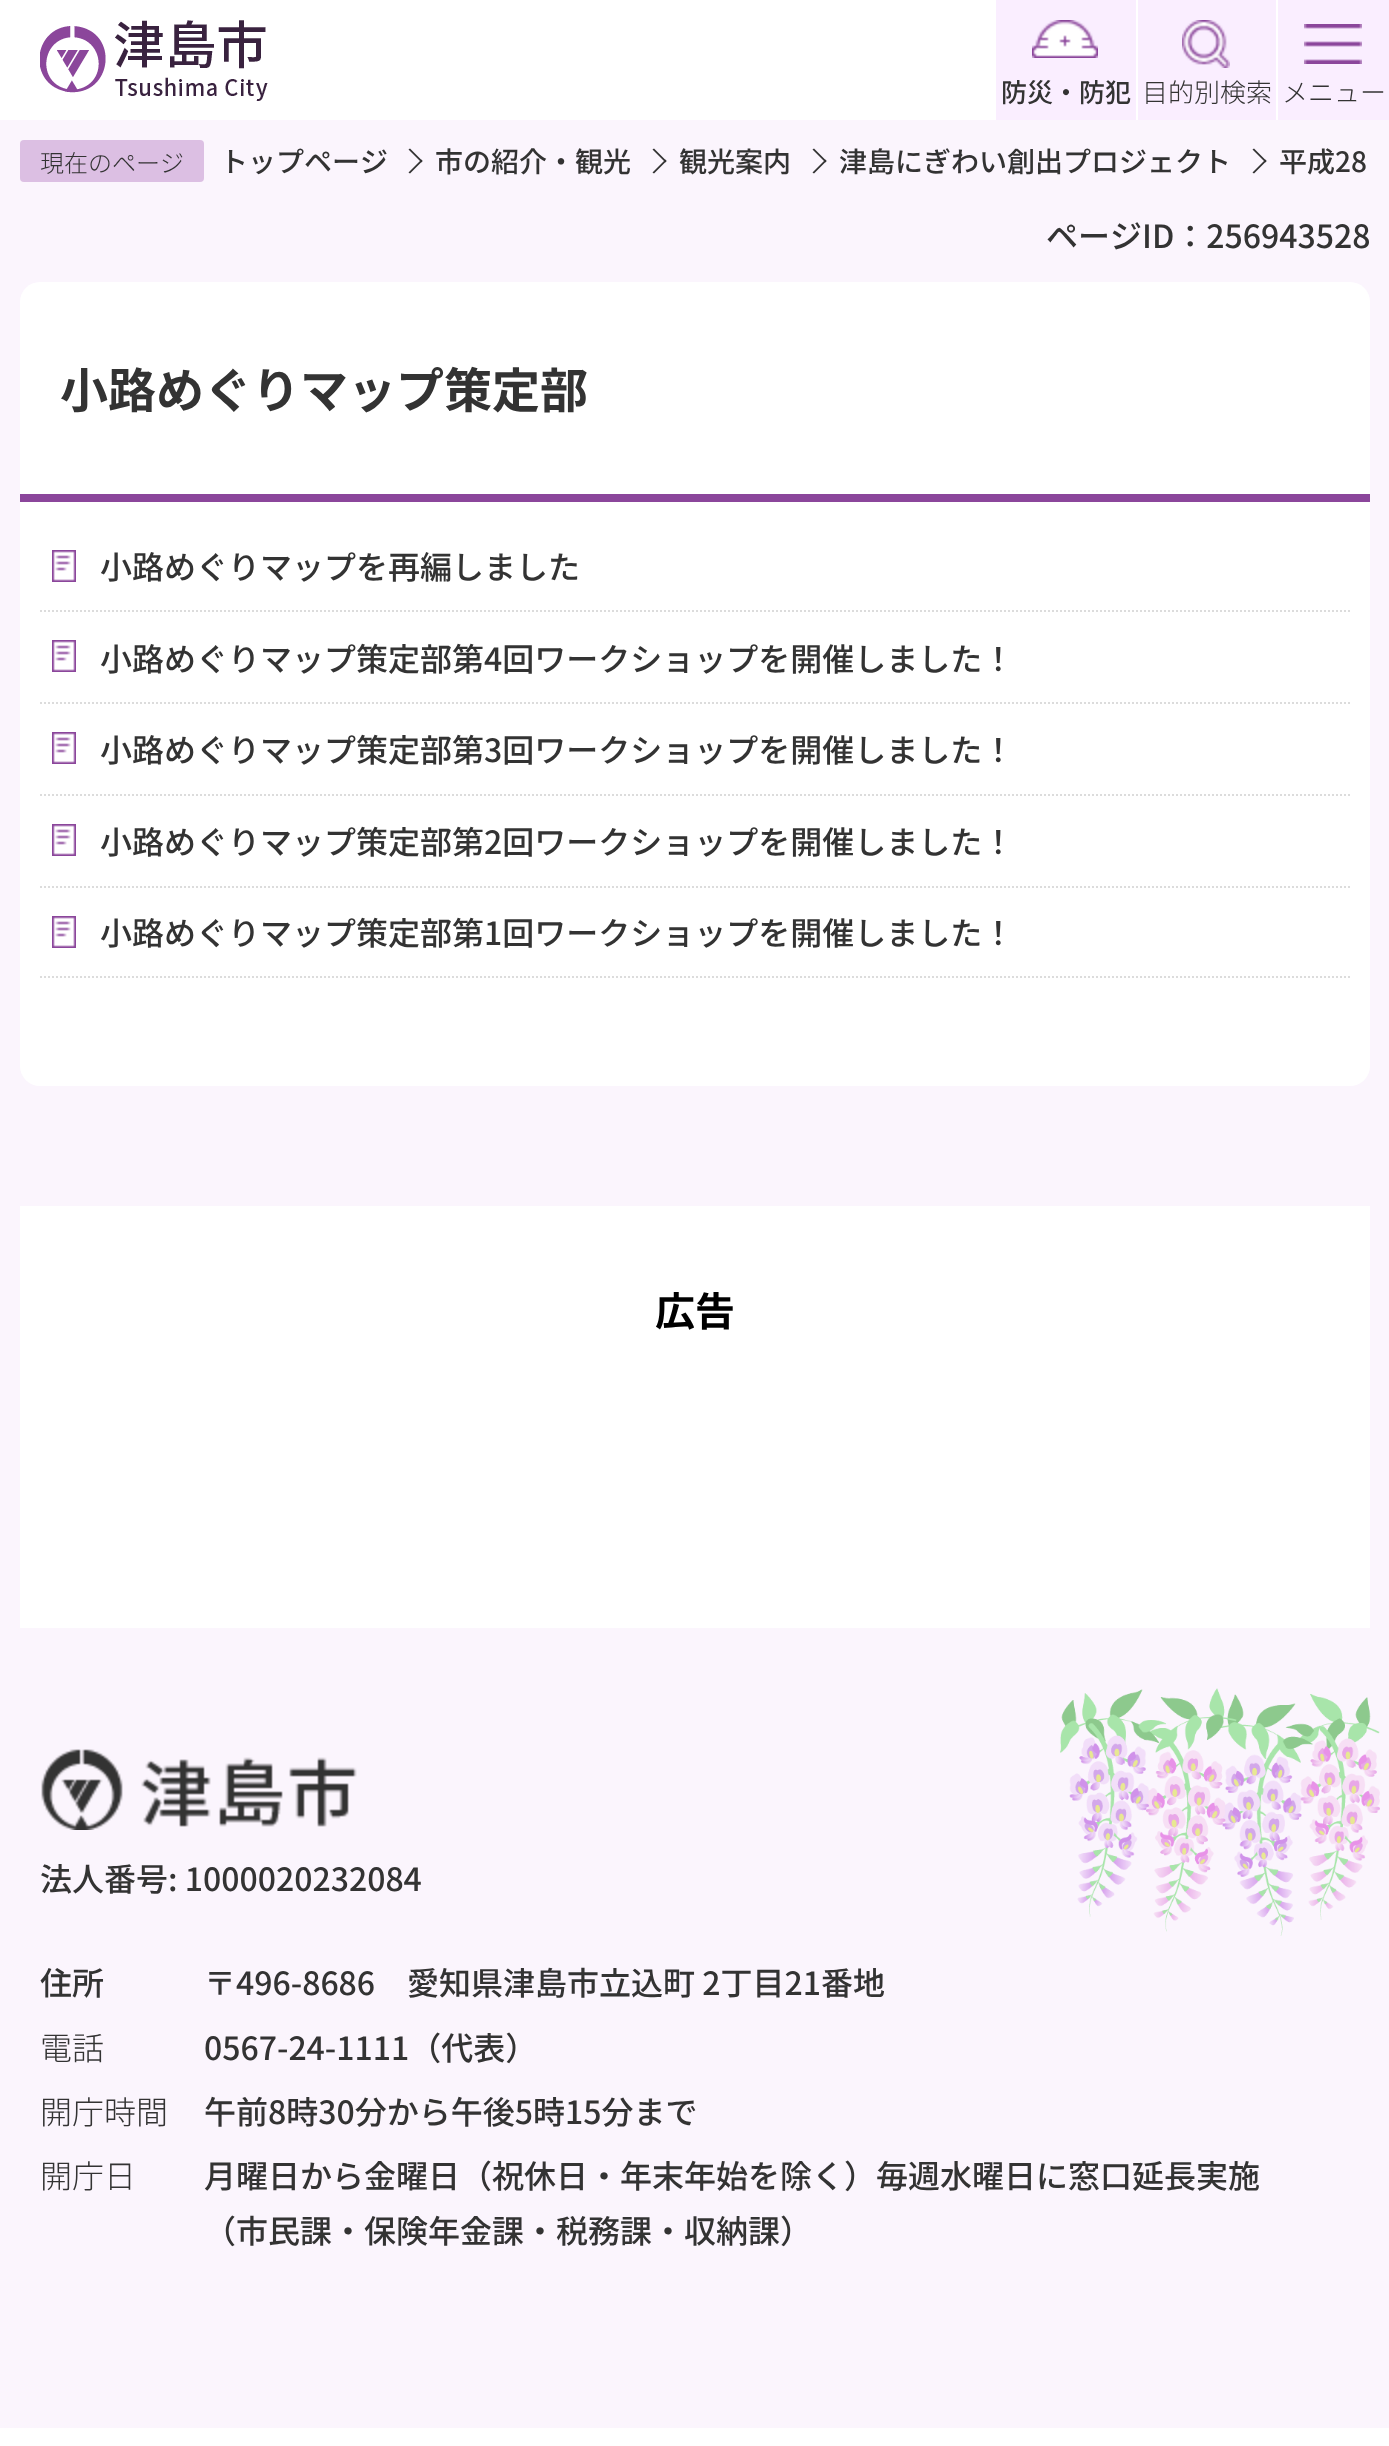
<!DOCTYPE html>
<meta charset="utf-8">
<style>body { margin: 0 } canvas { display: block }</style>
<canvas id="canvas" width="1389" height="2446"></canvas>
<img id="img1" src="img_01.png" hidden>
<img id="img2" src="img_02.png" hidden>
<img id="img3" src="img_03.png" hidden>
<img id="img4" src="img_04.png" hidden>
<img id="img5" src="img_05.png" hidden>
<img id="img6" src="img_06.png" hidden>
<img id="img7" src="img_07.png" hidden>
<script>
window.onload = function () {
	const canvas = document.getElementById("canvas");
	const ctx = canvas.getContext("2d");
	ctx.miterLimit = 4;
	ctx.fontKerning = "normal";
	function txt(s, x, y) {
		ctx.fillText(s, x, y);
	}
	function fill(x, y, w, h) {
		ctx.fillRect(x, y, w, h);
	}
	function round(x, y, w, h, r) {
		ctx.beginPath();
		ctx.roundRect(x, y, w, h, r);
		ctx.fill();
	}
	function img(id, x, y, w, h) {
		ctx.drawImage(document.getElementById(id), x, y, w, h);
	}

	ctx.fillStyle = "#FFFFFF";
	fill(0, 0, 1389, 2446);
	img("img1", 40, 20, 228, 81);
	ctx.fillStyle = "#FAEEFF";
	fill(996, 0, 140, 120);
	img("img2", 1032, 20, 66, 38);
	fill(1138, 0, 138, 120);
	img("img3", 1182, 20, 48, 48);
	fill(1278, 0, 111, 120);
	img("img4", 1304, 24, 58, 40);
	ctx.fillStyle = "#FBF5FD";
	fill(0, 120, 1389, 2308);
	ctx.fillStyle = "#DCBFE3";
	round(20, 140, 184, 42, 4);
	ctx.fillStyle = "#333333";
	ctx.beginPath();
	ctx.moveTo(410, 148.5);
	ctx.lineTo(422.5, 161);
	ctx.lineTo(421.5, 162.5);
	ctx.lineTo(408.5, 149.5);
	ctx.closePath();
	ctx.fill();
	ctx.beginPath();
	ctx.moveTo(421.5, 159.5);
	ctx.lineTo(422.5, 161);
	ctx.lineTo(410, 173.5);
	ctx.lineTo(408.5, 172.5);
	ctx.closePath();
	ctx.fill();
	ctx.beginPath();
	ctx.moveTo(654, 148.5);
	ctx.lineTo(666.5, 161);
	ctx.lineTo(665.5, 162.5);
	ctx.lineTo(652.5, 149.5);
	ctx.closePath();
	ctx.fill();
	ctx.beginPath();
	ctx.moveTo(665.5, 159.5);
	ctx.lineTo(666.5, 161);
	ctx.lineTo(654, 173.5);
	ctx.lineTo(652.5, 172.5);
	ctx.closePath();
	ctx.fill();
	ctx.beginPath();
	ctx.moveTo(814, 148.5);
	ctx.lineTo(826.5, 161);
	ctx.lineTo(825.5, 162.5);
	ctx.lineTo(812.5, 149.5);
	ctx.closePath();
	ctx.fill();
	ctx.beginPath();
	ctx.moveTo(825.5, 159.5);
	ctx.lineTo(826.5, 161);
	ctx.lineTo(814, 173.5);
	ctx.lineTo(812.5, 172.5);
	ctx.closePath();
	ctx.fill();
	ctx.beginPath();
	ctx.moveTo(1254, 148.5);
	ctx.lineTo(1266.5, 161);
	ctx.lineTo(1265.5, 162.5);
	ctx.lineTo(1252.5, 149.5);
	ctx.closePath();
	ctx.fill();
	ctx.beginPath();
	ctx.moveTo(1265.5, 159.5);
	ctx.lineTo(1266.5, 161);
	ctx.lineTo(1254, 173.5);
	ctx.lineTo(1252.5, 172.5);
	ctx.closePath();
	ctx.fill();
	ctx.fillStyle = "#FFFFFF";
	round(20, 282, 1350, 804, 20);
	ctx.fillStyle = "#8B469B";
	fill(20, 494, 1350, 8);
	ctx.beginPath();
	ctx.moveTo(40, 611);
	ctx.lineTo(1350, 611);
	ctx.strokeStyle = "#DCDCDC";
	ctx.lineWidth = 2;
	ctx.setLineDash([2, 2]);
	ctx.stroke();
	img("img5", 52, 550, 24, 32);
	ctx.beginPath();
	ctx.moveTo(40, 703);
	ctx.lineTo(1350, 703);
	ctx.stroke();
	img("img5", 52, 640, 24, 32);
	ctx.beginPath();
	ctx.moveTo(40, 795);
	ctx.lineTo(1350, 795);
	ctx.stroke();
	img("img5", 52, 732, 24, 32);
	ctx.beginPath();
	ctx.moveTo(40, 887);
	ctx.lineTo(1350, 887);
	ctx.stroke();
	img("img5", 52, 824, 24, 32);
	ctx.beginPath();
	ctx.moveTo(40, 977);
	ctx.lineTo(1350, 977);
	ctx.stroke();
	img("img5", 52, 916, 24, 32);
	ctx.fillStyle = "#FFFFFF";
	fill(20, 1206, 1350, 422);
	img("img6", 1060, 1688, 320, 248);
	img("img7", 41, 1749, 316, 81);
	ctx.font = "500 26px Noto Sans JP";
	ctx.fillStyle = "#333333";
	txt("防災・防犯", 1001, 102);
	ctx.font = "300 26px Noto Sans JP";
	txt("目的別検索", 1142, 102);
	txt("メニュー", 1282, 102);
	ctx.font = "300 24px Noto Sans JP";
	txt("現在のページ", 40, 172);
	ctx.font = "500 28px Noto Sans JP";
	txt("トップページ", 220, 172);
	txt("市の紹介・観光", 435, 172);
	txt("観光案内", 679, 172);
	txt("津島にぎわい創出プロジェクト", 839, 172);
	txt("平成28", 1279, 172);
	ctx.font = "500 32px Noto Sans JP";
	txt("ページID：256943528", 1046, 248);
	ctx.font = "bold 48px Noto Sans JP";
	txt("小路めぐりマップ策定部", 60, 408);
	ctx.font = "500 32px Noto Sans JP";
	txt("小路めぐりマップを再編しました", 100, 579);
	txt("小路めぐりマップ策定部第4回ワークショップを開催しました！", 100, 671);
	txt("小路めぐりマップ策定部第3回ワークショップを開催しました！", 100, 762);
	txt("小路めぐりマップ策定部第2回ワークショップを開催しました！", 100, 854);
	txt("小路めぐりマップ策定部第1回ワークショップを開催しました！", 100, 945);
	ctx.font = "bold 40px Noto Sans JP";
	ctx.fillStyle = "#000000";
	txt("広告", 655, 1326);
	ctx.font = "500 32px Noto Sans JP";
	ctx.fillStyle = "#333333";
	txt("法人番号: 1000020232084", 40, 1891);
	txt("住所", 40, 1995);
	txt("〒496-8686　愛知県津島市立込町 2丁目21番地", 204, 1995);
	ctx.font = "300 32px Noto Sans JP";
	txt("電話", 40, 2060);
	ctx.font = "500 32px Noto Sans JP";
	txt("0567-24-1111（代表）", 204, 2060);
	ctx.font = "300 32px Noto Sans JP";
	txt("開庁時間", 40, 2124);
	ctx.font = "500 32px Noto Sans JP";
	txt("午前8時30分から午後5時15分まで", 204, 2124);
	ctx.font = "300 32px Noto Sans JP";
	txt("開庁日", 40, 2188);
	ctx.font = "500 32px Noto Sans JP";
	txt("月曜日から金曜日（祝休日・年末年始を除く）毎週水曜日に窓口延長実施", 204, 2188);
	txt("（市民課・保険年金課・税務課・収納課）", 204, 2243);
};
</script>
